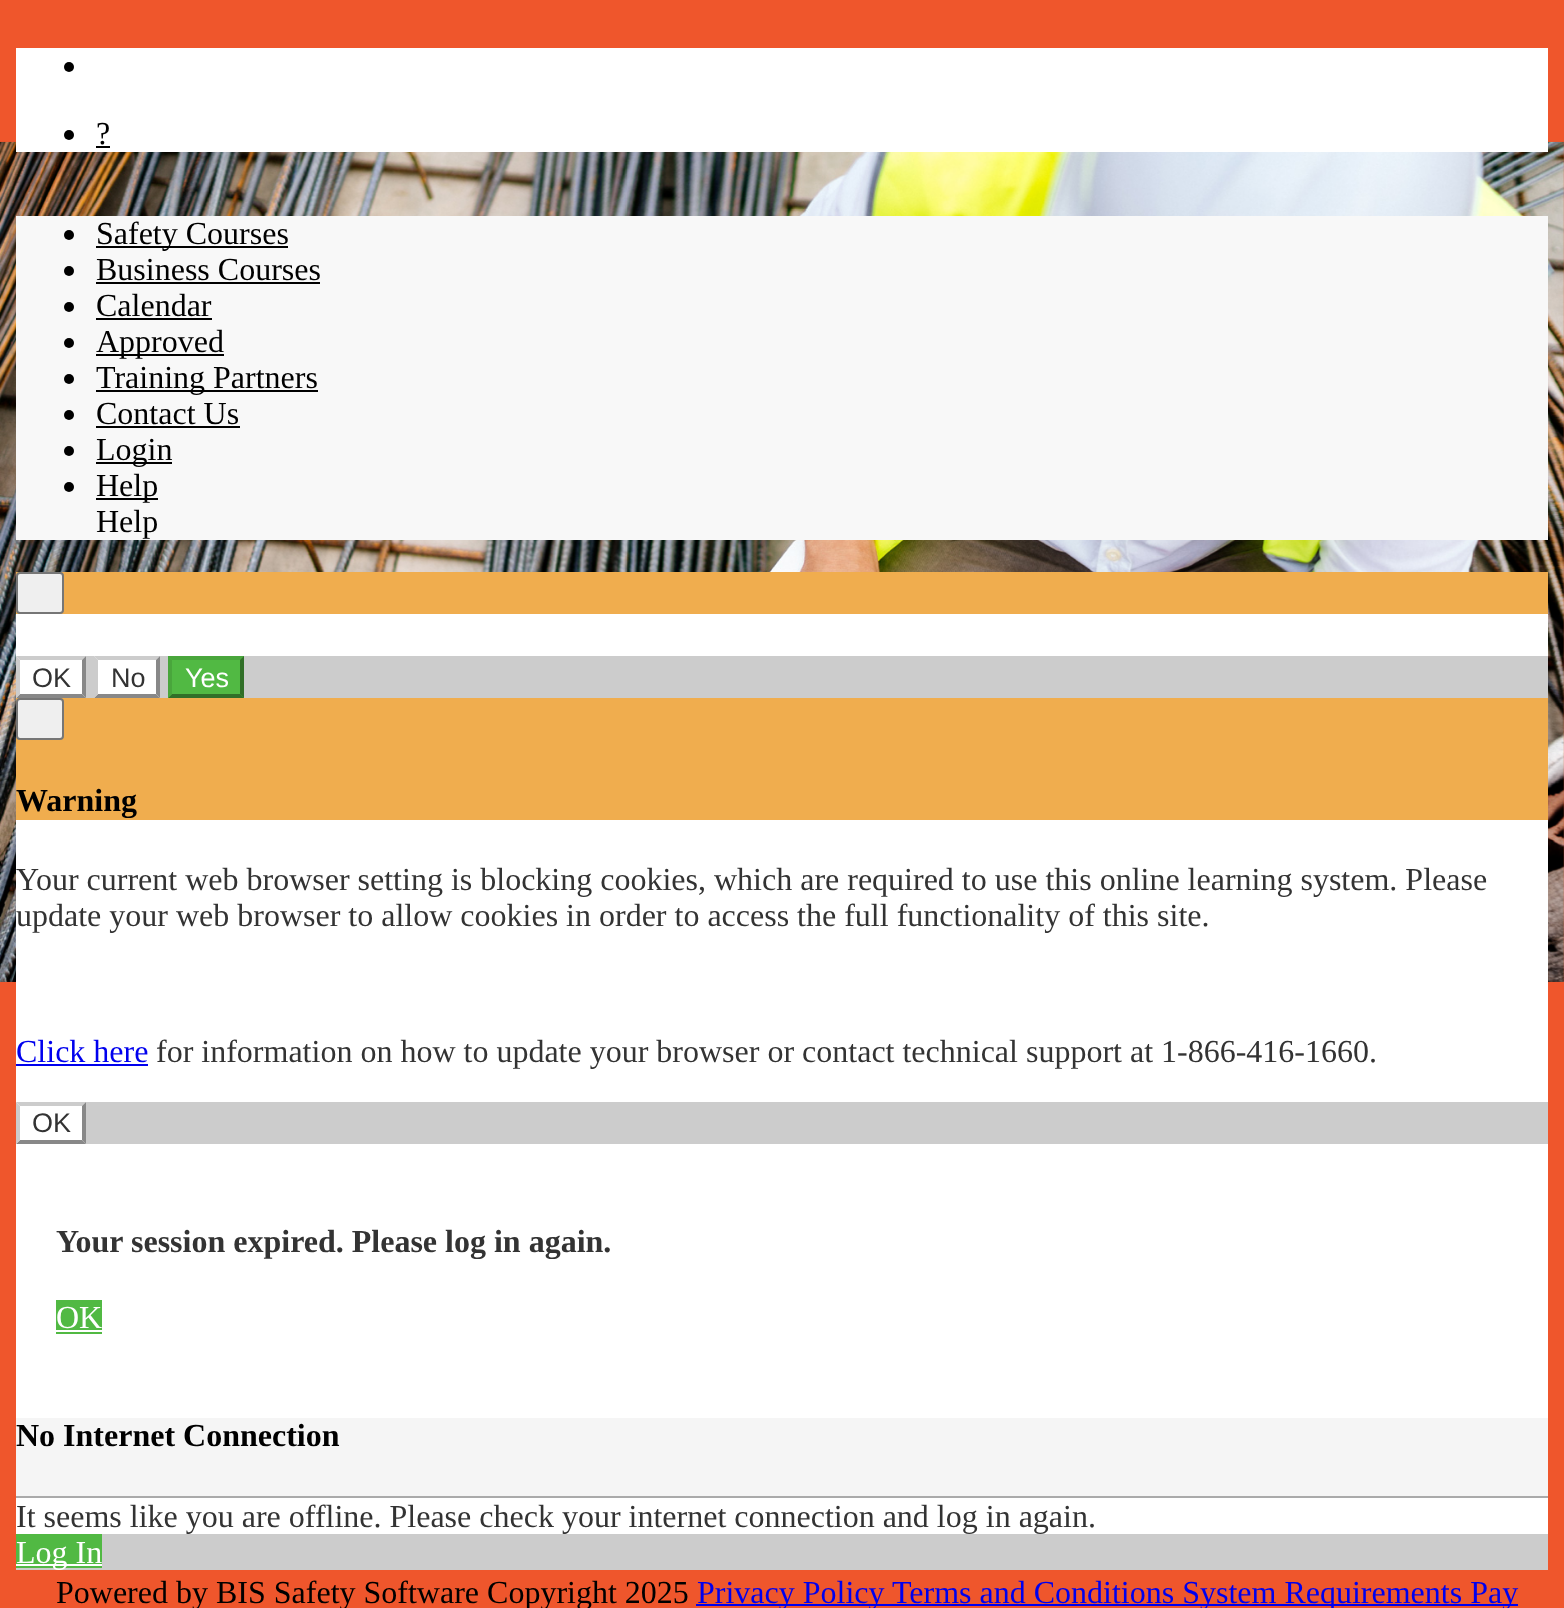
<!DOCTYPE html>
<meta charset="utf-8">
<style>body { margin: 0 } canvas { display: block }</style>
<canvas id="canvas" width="1564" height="1608"></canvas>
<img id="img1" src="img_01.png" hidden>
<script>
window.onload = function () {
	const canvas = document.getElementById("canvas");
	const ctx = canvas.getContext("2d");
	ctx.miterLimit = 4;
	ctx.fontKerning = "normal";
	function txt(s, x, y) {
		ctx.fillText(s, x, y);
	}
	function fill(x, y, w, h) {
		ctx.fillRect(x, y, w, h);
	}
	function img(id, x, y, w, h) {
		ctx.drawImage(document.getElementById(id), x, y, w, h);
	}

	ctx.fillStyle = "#EF562C";
	fill(0, 0, 1564, 1608);
	img("img1", 0, 141, 1564, 841);
	ctx.fillStyle = "#FFFFFF";
	fill(16, 48, 1532, 104);
	ctx.fillStyle = "#000000";
	ctx.beginPath();
	ctx.arc(69, 67, 5, 0, Math.PI * 2);
	ctx.fill();
	ctx.beginPath();
	ctx.arc(69, 135, 5, 0, Math.PI * 2);
	ctx.fill();
	fill(96, 146, 14, 2);
	ctx.fillStyle = "#F8F8F8";
	fill(16, 216, 1532, 324);
	ctx.fillStyle = "#000000";
	ctx.beginPath();
	ctx.arc(69, 235, 5, 0, Math.PI * 2);
	ctx.fill();
	fill(96, 246, 192, 2);
	ctx.beginPath();
	ctx.arc(69, 271, 5, 0, Math.PI * 2);
	ctx.fill();
	fill(96, 282, 224, 2);
	ctx.beginPath();
	ctx.arc(69, 307, 5, 0, Math.PI * 2);
	ctx.fill();
	fill(96, 318, 116, 2);
	ctx.beginPath();
	ctx.arc(69, 343, 5, 0, Math.PI * 2);
	ctx.fill();
	fill(96, 354, 128, 2);
	ctx.beginPath();
	ctx.arc(69, 379, 5, 0, Math.PI * 2);
	ctx.fill();
	fill(96, 390, 222, 2);
	ctx.beginPath();
	ctx.arc(69, 415, 5, 0, Math.PI * 2);
	ctx.fill();
	fill(96, 426, 144, 2);
	ctx.beginPath();
	ctx.arc(69, 451, 5, 0, Math.PI * 2);
	ctx.fill();
	fill(96, 462, 76, 2);
	ctx.beginPath();
	ctx.arc(69, 487, 5, 0, Math.PI * 2);
	ctx.fill();
	fill(96, 498, 62, 2);
	ctx.fillStyle = "#FFFFFF";
	fill(16, 614, 1532, 42);
	ctx.fillStyle = "#F0AD4E";
	fill(16, 572, 1532, 42);
	ctx.fillStyle = "#EFEFEF";
	ctx.beginPath();
	ctx.roundRect(17, 573, 46, 40, 3);
	ctx.fill();
	ctx.strokeStyle = "#767676";
	ctx.lineWidth = 2;
	ctx.stroke();
	ctx.fillStyle = "#CCCCCC";
	fill(86, 656, 1462, 42);
	ctx.fillStyle = "#FFFFFF";
	fill(16, 656, 70, 42);
	ctx.fillStyle = "#CCCCCC";
	ctx.beginPath();
	ctx.moveTo(16, 656);
	ctx.lineTo(86, 656);
	ctx.lineTo(82, 660);
	ctx.lineTo(20, 660);
	ctx.closePath();
	ctx.fill();
	ctx.fillStyle = "#888888";
	ctx.beginPath();
	ctx.moveTo(86, 656);
	ctx.lineTo(86, 698);
	ctx.lineTo(82, 694);
	ctx.lineTo(82, 660);
	ctx.closePath();
	ctx.fill();
	ctx.beginPath();
	ctx.moveTo(86, 698);
	ctx.lineTo(16, 698);
	ctx.lineTo(20, 694);
	ctx.lineTo(82, 694);
	ctx.closePath();
	ctx.fill();
	ctx.fillStyle = "#CCCCCC";
	ctx.beginPath();
	ctx.moveTo(16, 698);
	ctx.lineTo(16, 656);
	ctx.lineTo(20, 660);
	ctx.lineTo(20, 694);
	ctx.closePath();
	ctx.fill();
	ctx.fillStyle = "#FFFFFF";
	fill(94, 656, 66, 42);
	ctx.fillStyle = "#CCCCCC";
	ctx.beginPath();
	ctx.moveTo(94, 656);
	ctx.lineTo(160, 656);
	ctx.lineTo(156, 660);
	ctx.lineTo(98, 660);
	ctx.closePath();
	ctx.fill();
	ctx.fillStyle = "#888888";
	ctx.beginPath();
	ctx.moveTo(160, 656);
	ctx.lineTo(160, 698);
	ctx.lineTo(156, 694);
	ctx.lineTo(156, 660);
	ctx.closePath();
	ctx.fill();
	ctx.beginPath();
	ctx.moveTo(160, 698);
	ctx.lineTo(94, 698);
	ctx.lineTo(98, 694);
	ctx.lineTo(156, 694);
	ctx.closePath();
	ctx.fill();
	ctx.fillStyle = "#CCCCCC";
	ctx.beginPath();
	ctx.moveTo(94, 698);
	ctx.lineTo(94, 656);
	ctx.lineTo(98, 660);
	ctx.lineTo(98, 694);
	ctx.closePath();
	ctx.fill();
	ctx.fillStyle = "#51B943";
	fill(168, 656, 76, 42);
	ctx.fillStyle = "#49A63C";
	ctx.beginPath();
	ctx.moveTo(168, 656);
	ctx.lineTo(244, 656);
	ctx.lineTo(240, 660);
	ctx.lineTo(172, 660);
	ctx.closePath();
	ctx.fill();
	ctx.fillStyle = "#316F28";
	ctx.beginPath();
	ctx.moveTo(244, 656);
	ctx.lineTo(244, 698);
	ctx.lineTo(240, 694);
	ctx.lineTo(240, 660);
	ctx.closePath();
	ctx.fill();
	ctx.beginPath();
	ctx.moveTo(244, 698);
	ctx.lineTo(168, 698);
	ctx.lineTo(172, 694);
	ctx.lineTo(240, 694);
	ctx.closePath();
	ctx.fill();
	ctx.fillStyle = "#49A63C";
	ctx.beginPath();
	ctx.moveTo(168, 698);
	ctx.lineTo(168, 656);
	ctx.lineTo(172, 660);
	ctx.lineTo(172, 694);
	ctx.closePath();
	ctx.fill();
	ctx.fillStyle = "#FFFFFF";
	fill(16, 820, 1532, 282);
	ctx.fillStyle = "#F0AD4E";
	fill(16, 698, 1532, 122);
	ctx.fillStyle = "#EFEFEF";
	ctx.beginPath();
	ctx.roundRect(17, 699, 46, 40, 3);
	ctx.fill();
	ctx.stroke();
	ctx.fillStyle = "#0000EE";
	fill(16, 1064, 132, 2);
	ctx.fillStyle = "#CCCCCC";
	fill(86, 1102, 1462, 42);
	ctx.fillStyle = "#FFFFFF";
	fill(16, 1102, 70, 42);
	ctx.fillStyle = "#CCCCCC";
	ctx.beginPath();
	ctx.moveTo(16, 1102);
	ctx.lineTo(86, 1102);
	ctx.lineTo(82, 1106);
	ctx.lineTo(20, 1106);
	ctx.closePath();
	ctx.fill();
	ctx.fillStyle = "#888888";
	ctx.beginPath();
	ctx.moveTo(86, 1102);
	ctx.lineTo(86, 1144);
	ctx.lineTo(82, 1140);
	ctx.lineTo(82, 1106);
	ctx.closePath();
	ctx.fill();
	ctx.beginPath();
	ctx.moveTo(86, 1144);
	ctx.lineTo(16, 1144);
	ctx.lineTo(20, 1140);
	ctx.lineTo(82, 1140);
	ctx.closePath();
	ctx.fill();
	ctx.fillStyle = "#CCCCCC";
	ctx.beginPath();
	ctx.moveTo(16, 1144);
	ctx.lineTo(16, 1102);
	ctx.lineTo(20, 1106);
	ctx.lineTo(20, 1140);
	ctx.closePath();
	ctx.fill();
	ctx.fillStyle = "#FFFFFF";
	fill(16, 1144, 1532, 390);
	ctx.fillStyle = "#51B943";
	fill(56, 1300, 46, 34);
	ctx.fillStyle = "#FFFFFF";
	fill(56, 1330, 46, 2);
	ctx.fillStyle = "#F5F5F5";
	fill(16, 1418, 1532, 78);
	ctx.fillStyle = "#AAAAAA";
	fill(16, 1496, 1532, 2);
	ctx.fillStyle = "#CCCCCC";
	fill(16, 1534, 1532, 36);
	ctx.fillStyle = "#51B943";
	fill(16, 1534, 86, 34);
	ctx.fillStyle = "#FFFFFF";
	fill(16, 1564, 86, 2);
	ctx.fillStyle = "#0000EE";
	fill(696, 1604, 822, 2);
	ctx.font = "32px Liberation Serif";
	ctx.fillStyle = "#000000";
	txt("?", 96, 144);
	txt("Safety Courses", 96, 244);
	txt("Business Courses", 96, 280);
	txt("Calendar", 96, 316);
	txt("Approved", 96, 352);
	txt("Training Partners", 96, 388);
	txt("Contact Us", 96, 424);
	txt("Login", 96, 460);
	txt("Help", 96, 496);
	txt("Help", 96, 532);
	ctx.font = "27px Liberation Sans";
	ctx.fillStyle = "#333333";
	txt("OK", 32, 687);
	txt("No", 111, 687);
	ctx.fillStyle = "#FFFFFF";
	txt("Yes", 185, 687);
	ctx.font = "bold 32px Liberation Serif";
	ctx.fillStyle = "#000000";
	txt("Warning", 16, 811);
	ctx.font = "32px Liberation Serif";
	ctx.fillStyle = "#333333";
	txt("Your current web browser setting is blocking cookies, which are required to use this online learning system. Please", 16, 890);
	txt("update your web browser to allow cookies in order to access the full functionality of this site.", 16, 926);
	ctx.fillStyle = "#0000EE";
	txt("Click here", 16, 1062);
	ctx.fillStyle = "#333333";
	txt("for information on how to update your browser or contact technical support at 1-866-416-1660.", 156, 1062);
	ctx.font = "27px Liberation Sans";
	txt("OK", 32, 1132);
	ctx.font = "bold 32px Liberation Serif";
	txt("Your session expired. Please log in again.", 56, 1252);
	ctx.font = "32px Liberation Serif";
	ctx.fillStyle = "#FFFFFF";
	txt("OK", 56, 1328);
	ctx.font = "bold 32px Liberation Serif";
	ctx.fillStyle = "#000000";
	txt("No Internet Connection", 16, 1446);
	ctx.font = "32px Liberation Serif";
	ctx.fillStyle = "#333333";
	txt("It seems like you are offline. Please check your internet connection and log in again.", 16, 1527);
	ctx.fillStyle = "#FFFFFF";
	txt("Log In", 16, 1563);
	ctx.fillStyle = "#000000";
	txt("Powered by BIS Safety Software Copyright 2025", 56, 1603);
	ctx.fillStyle = "#0000EE";
	txt("Privacy Policy", 697, 1603);
	txt("Terms and Conditions System Requirements Pay", 892, 1603);
};
</script>
